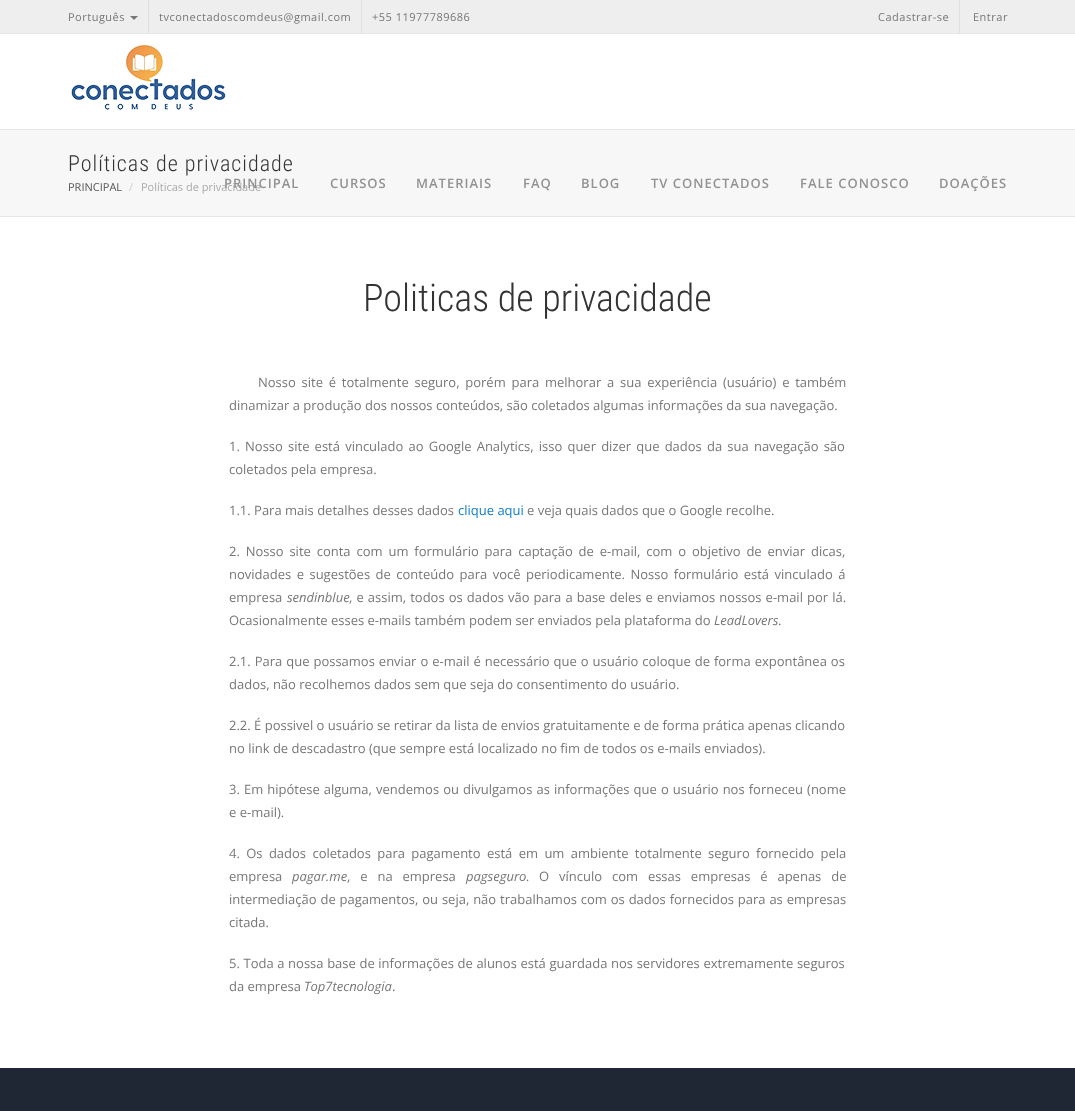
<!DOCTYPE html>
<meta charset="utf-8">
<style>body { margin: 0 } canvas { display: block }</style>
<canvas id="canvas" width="1075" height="1111"></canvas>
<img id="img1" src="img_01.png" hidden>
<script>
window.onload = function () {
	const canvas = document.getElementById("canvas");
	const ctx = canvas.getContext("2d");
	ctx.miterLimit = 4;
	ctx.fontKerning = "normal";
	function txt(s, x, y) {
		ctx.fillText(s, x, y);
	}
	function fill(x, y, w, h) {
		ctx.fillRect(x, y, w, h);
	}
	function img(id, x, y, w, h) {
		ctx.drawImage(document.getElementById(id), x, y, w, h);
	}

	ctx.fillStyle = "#FFFFFF";
	fill(0, 0, 1075, 1111);
	ctx.fillStyle = "#EEEEEE";
	fill(0, 0, 1075, 33);
	ctx.fillStyle = "#E5E5E5";
	fill(0, 33, 1075, 1);
	ctx.fillStyle = "#E0E0E0";
	fill(148, 0, 1, 33);
	ctx.fillStyle = "#777777";
	ctx.beginPath();
	ctx.moveTo(130, 16);
	ctx.lineTo(138, 16);
	ctx.lineTo(134, 20);
	ctx.closePath();
	ctx.fill();
	ctx.fillStyle = "#E0E0E0";
	fill(361, 0, 1, 33);
	fill(959, 0, 1, 33);
	img("img1", 71, 44, 155, 66);
	ctx.fillStyle = "#F7F7F7";
	fill(0, 130, 1075, 86);
	ctx.fillStyle = "#E5E5E5";
	fill(0, 129, 1075, 1);
	fill(0, 216, 1075, 1);
	ctx.fillStyle = "#202734";
	fill(0, 1068, 1075, 43);
	ctx.letterSpacing = "0.5px";
	ctx.font = "11px Open Sans";
	ctx.fillStyle = "#777777";
	txt("Português", 68, 21);
	txt("tvconectadoscomdeus@gmail.com", 159, 21);
	txt("+55 11977789686", 372, 21);
	txt("Cadastrar-se", 878, 21);
	txt("Entrar", 973, 21);
	ctx.letterSpacing = "1px";
	ctx.font = "600 13px Open Sans";
	ctx.fillStyle = "#929292";
	txt("CURSOS", 330, 188);
	txt("MATERIAIS", 416, 188);
	txt("FAQ", 523, 188);
	txt("BLOG", 581, 188);
	txt("TV CONECTADOS", 651, 188);
	txt("FALE CONOSCO", 800, 188);
	txt("DOAÇÕES", 939, 188);
	ctx.font = "300 22px Roboto Condensed";
	ctx.fillStyle = "#333333";
	txt("Políticas de privacidade", 68, 171);
	ctx.letterSpacing = "0px";
	ctx.font = "11px Open Sans";
	ctx.fillStyle = "#555555";
	txt("PRINCIPAL", 68, 191);
	ctx.fillStyle = "#CCCCCC";
	txt("/", 129, 191);
	ctx.fillStyle = "#AAAAAA";
	txt("Políticas de privacidade", 141, 191);
	ctx.letterSpacing = "1px";
	ctx.font = "600 13px Open Sans";
	ctx.fillStyle = "#929292";
	txt("PRINCIPAL", 224, 188);
	ctx.letterSpacing = "0px";
	ctx.font = "300 38px Roboto Condensed";
	ctx.fillStyle = "#333333";
	txt("Politicas de privacidade", 363, 311);
	ctx.wordSpacing = "2.4px";
	ctx.font = "13px Open Sans";
	ctx.fillStyle = "#777777";
	txt("Nosso site é totalmente seguro, porém para melhorar a sua experiência (usuário) e também", 258, 387);
	ctx.wordSpacing = "0px";
	txt("dinamizar a produção dos nossos conteúdos, são coletados algumas informações da sua navegação.", 229, 410);
	ctx.wordSpacing = "1.8px";
	txt("1. Nosso site está vinculado ao Google Analytics, isso quer dizer que dados da sua navegação são", 229, 451);
	ctx.wordSpacing = "0px";
	txt("coletados pela empresa.", 229, 474);
	txt("1.1. Para mais detalhes desses dados", 229, 515);
	ctx.fillStyle = "#0D7CC9";
	txt("clique aqui", 458, 515);
	ctx.fillStyle = "#777777";
	txt("e veja quais dados que o Google recolhe.", 527, 515);
	ctx.wordSpacing = "2.5px";
	txt("2. Nosso site conta com um formulário para captação de e-mail, com o objetivo de enviar dicas,", 229, 556);
	ctx.wordSpacing = "2.1px";
	txt("novidades e sugestões de conteúdo para você periodicamente. Nosso formulário está vinculado á", 229, 579);
	ctx.wordSpacing = "0px";
	txt("empresa", 229, 602);
	ctx.font = "italic 13px Open Sans";
	txt("sendinblue", 287, 602);
	ctx.wordSpacing = "0.7px";
	ctx.font = "13px Open Sans";
	txt(", e assim, todos os dados vão para a base deles e enviamos nossos e-mail por lá.", 349, 602);
	ctx.wordSpacing = "0px";
	txt("Ocasionalmente esses e-mails também podem ser enviados pela plataforma do", 229, 625);
	ctx.font = "italic 13px Open Sans";
	txt("LeadLovers", 714, 625);
	ctx.font = "13px Open Sans";
	txt(".", 778, 625);
	ctx.wordSpacing = "0.6px";
	txt("2.1. Para que possamos enviar o e-mail é necessário que o usuário coloque de forma expontânea os", 229, 666);
	ctx.wordSpacing = "0px";
	txt("dados, não recolhemos dados sem que seja do consentimento do usuário.", 229, 689);
	txt("2.2. É possivel o usuário se retirar da lista de envios gratuitamente e de forma prática apenas clicando", 229, 730);
	txt("no link de descadastro (que sempre está localizado no fim de todos os e-mails enviados).", 229, 753);
	ctx.wordSpacing = "0.7px";
	txt("3. Em hipótese alguma, vendemos ou divulgamos as informações que o usuário nos forneceu (nome", 229, 794);
	ctx.wordSpacing = "0px";
	txt("e e-mail).", 229, 817);
	ctx.wordSpacing = "3px";
	txt("4. Os dados coletados para pagamento está em um ambiente totalmente seguro fornecido pela", 229, 858);
	ctx.wordSpacing = "0px";
	txt("empresa", 229, 881);
	ctx.font = "italic 13px Open Sans";
	txt("pagar.me", 292, 881);
	ctx.wordSpacing = "6.5px";
	ctx.font = "13px Open Sans";
	txt(", e na empresa", 347, 881);
	ctx.wordSpacing = "0px";
	ctx.font = "italic 13px Open Sans";
	txt("pagseguro.", 466, 881);
	ctx.wordSpacing = "6.5px";
	ctx.font = "13px Open Sans";
	txt("O vínculo com essas empresas é apenas de", 539, 881);
	ctx.wordSpacing = "0.5px";
	txt("intermediação de pagamentos, ou seja, não trabalhamos com os dados fornecidos para as empresas", 229, 904);
	ctx.wordSpacing = "0px";
	txt("citada.", 229, 927);
	ctx.wordSpacing = "0.25px";
	txt("5. Toda a nossa base de informações de alunos está guardada nos servidores extremamente seguros", 229, 968);
	ctx.wordSpacing = "0px";
	txt("da empresa", 229, 991);
	ctx.font = "italic 13px Open Sans";
	txt("Top7tecnologia", 304, 991);
	ctx.font = "13px Open Sans";
	txt(".", 392, 991);
};
</script>
